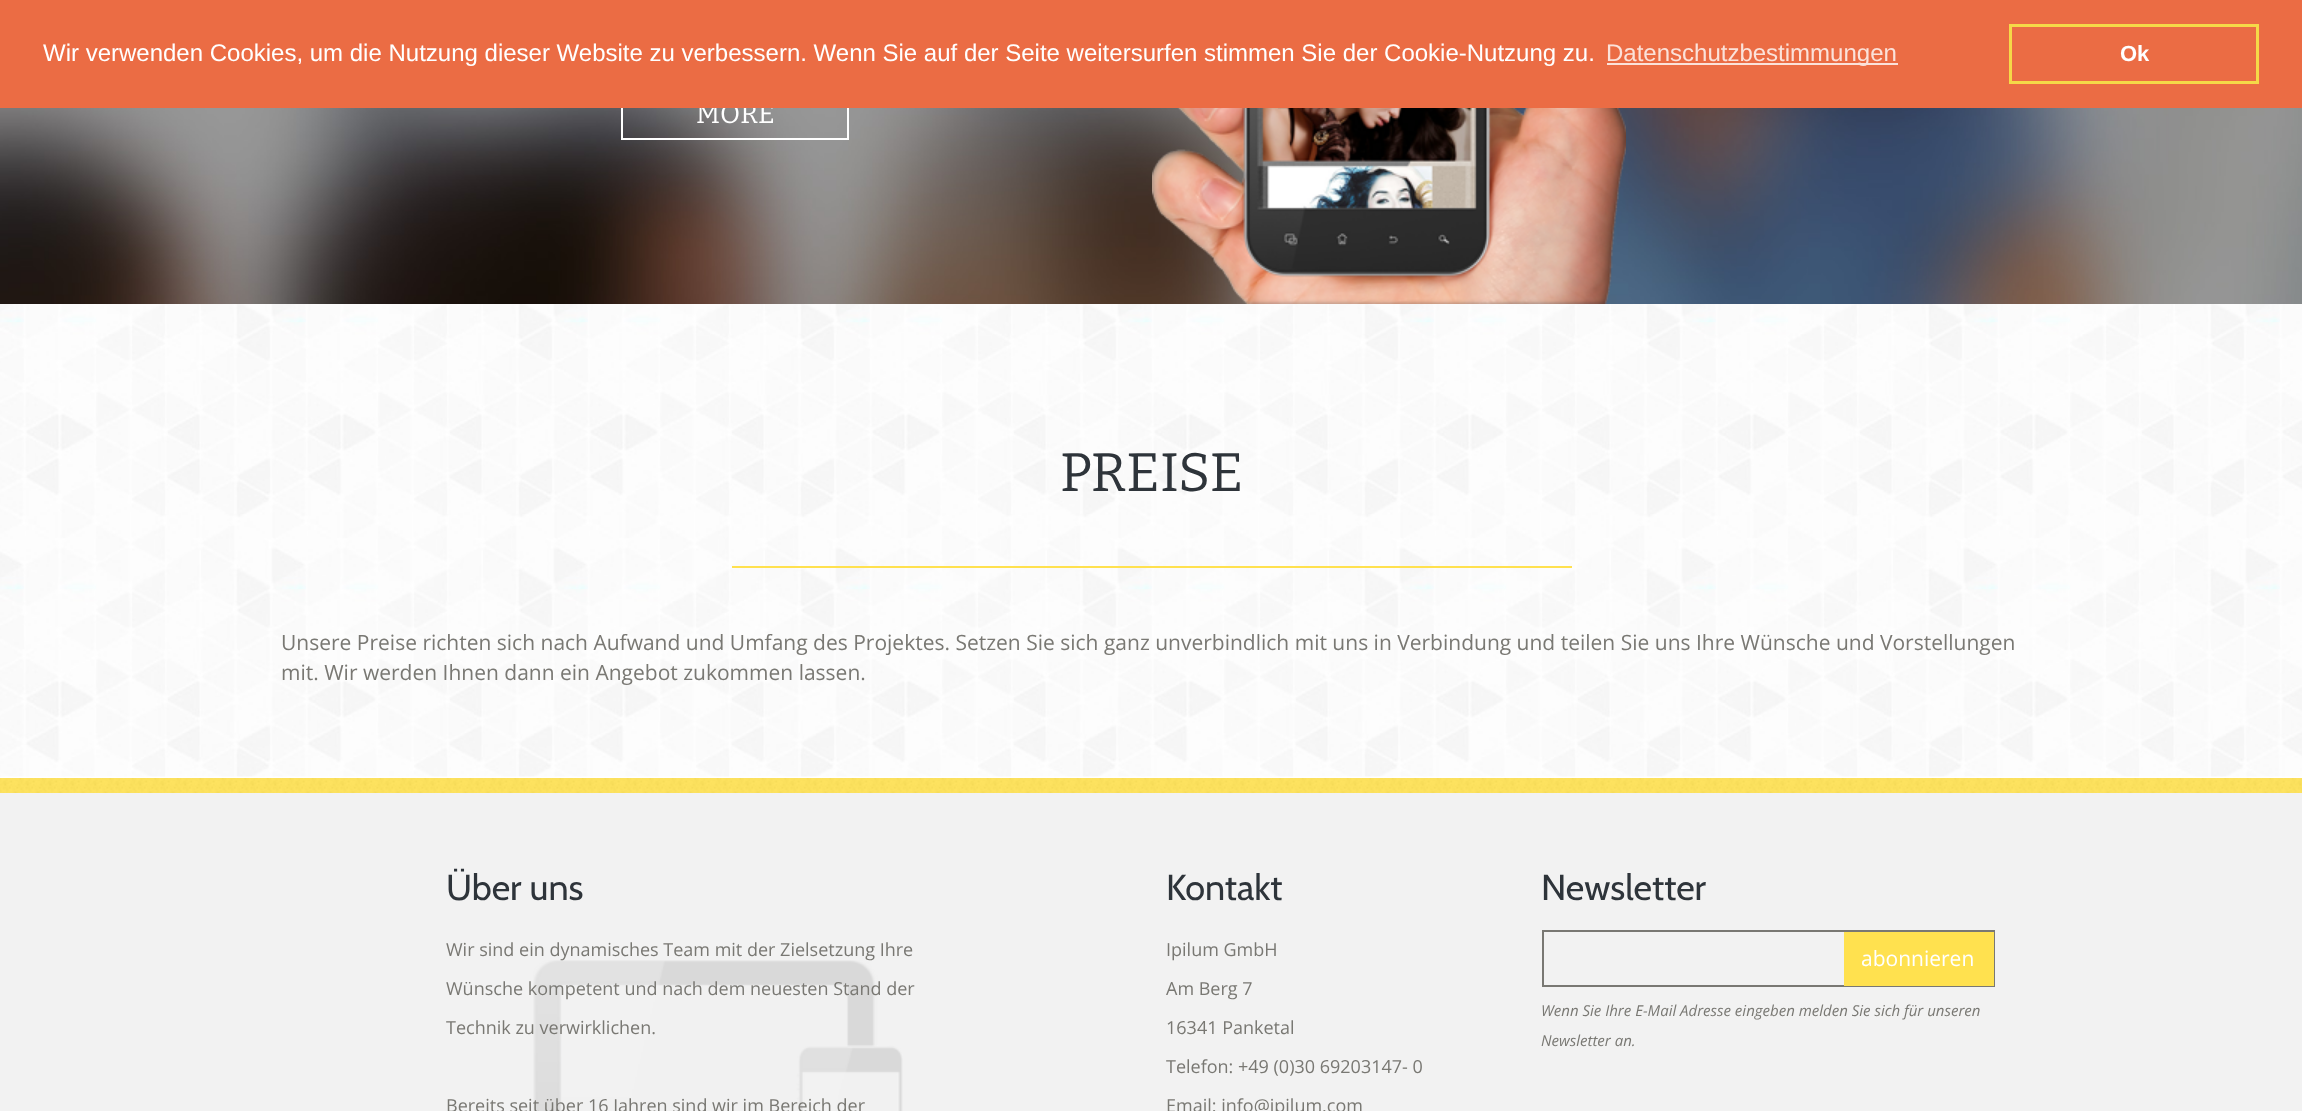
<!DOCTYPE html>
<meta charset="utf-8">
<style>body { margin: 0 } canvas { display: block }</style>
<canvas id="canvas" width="2302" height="1111"></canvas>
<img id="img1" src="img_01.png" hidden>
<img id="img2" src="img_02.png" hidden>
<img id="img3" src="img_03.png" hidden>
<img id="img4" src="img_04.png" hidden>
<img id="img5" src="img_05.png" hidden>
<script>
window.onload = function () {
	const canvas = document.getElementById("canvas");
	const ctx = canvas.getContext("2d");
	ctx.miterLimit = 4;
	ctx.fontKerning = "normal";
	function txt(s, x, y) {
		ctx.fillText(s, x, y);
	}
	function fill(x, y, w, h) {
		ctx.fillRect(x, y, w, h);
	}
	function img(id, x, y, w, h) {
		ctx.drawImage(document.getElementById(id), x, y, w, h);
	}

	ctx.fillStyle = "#FFFFFF";
	fill(0, 0, 2302, 1111);
	img("img1", 0, 304, 2302, 473);
	img("img2", 0, 108, 2302, 196);
	ctx.strokeStyle = "#FFFFFF";
	ctx.lineWidth = 2;
	ctx.strokeRect(622, 90, 226, 49);
	img("img3", 1152, 108, 474, 196);
	ctx.fillStyle = "#FFE14F";
	fill(732, 566, 840, 2);
	ctx.fillStyle = "#F2F2F2";
	fill(0, 793, 2302, 318);
	img("img4", 0, 778, 2302, 15);
	img("img5", 533, 960, 370, 151);
	ctx.strokeStyle = "#797873";
	ctx.strokeRect(1543, 931, 451, 55);
	ctx.fillStyle = "#FFE14F";
	fill(1844, 932, 150, 54);
	ctx.font = "27px Bitter";
	ctx.fillStyle = "#FFFFFF";
	txt("MORE", 696, 123);
	ctx.fillStyle = "#EB6C44";
	fill(0, 0, 2302, 108);
	ctx.fillStyle = "#FBE2DA";
	fill(1607, 63, 291, 2);
	ctx.font = "24px Liberation Sans";
	txt("Datenschutzbestimmungen", 1606, 61);
	ctx.strokeStyle = "#F5D948";
	ctx.lineWidth = 3;
	ctx.strokeRect(2010.5, 25.5, 247, 57);
	ctx.font = "bold 22px Liberation Sans";
	ctx.fillStyle = "#FFFFFF";
	txt("Ok", 2120, 61);
	ctx.font = "24px Liberation Sans";
	txt("Wir verwenden Cookies, um die Nutzung dieser Website zu verbessern. Wenn Sie auf der Seite weitersurfen stimmen Sie der Cookie-Nutzung zu.", 43, 61);
	ctx.font = "54px Bitter";
	ctx.fillStyle = "#2E343A";
	txt("PREISE", 1060, 491);
	ctx.font = "21px Open Sans";
	ctx.fillStyle = "#797873";
	txt("Unsere Preise richten sich nach Aufwand und Umfang des Projektes. Setzen Sie sich ganz unverbindlich mit uns in Verbindung und teilen Sie uns Ihre Wünsche und Vorstellungen", 281, 650);
	txt("mit. Wir werden Ihnen dann ein Angebot zukommen lassen.", 281, 680);
	ctx.font = "36px Cabin";
	ctx.fillStyle = "#2E343A";
	txt("Über uns", 446, 900);
	ctx.font = "18px Open Sans";
	ctx.fillStyle = "#797873";
	txt("Wir sind ein dynamisches Team mit der Zielsetzung Ihre", 446, 956);
	txt("Wünsche kompetent und nach dem neuesten Stand der", 446, 995);
	txt("Technik zu verwirklichen.", 446, 1034);
	txt("Bereits seit über 16 Jahren sind wir im Bereich der", 446, 1112);
	ctx.font = "36px Cabin";
	ctx.fillStyle = "#2E343A";
	txt("Kontakt", 1166, 900);
	ctx.font = "18px Open Sans";
	ctx.fillStyle = "#797873";
	txt("Ipilum GmbH", 1166, 956);
	txt("Am Berg 7", 1166, 995);
	txt("16341 Panketal", 1166, 1034);
	txt("Telefon: +49 (0)30 69203147- 0", 1166, 1073);
	txt("Email: info@ipilum.com", 1166, 1112);
	ctx.font = "36px Cabin";
	ctx.fillStyle = "#2E343A";
	txt("Newsletter", 1541, 900);
	ctx.font = "21px Open Sans";
	ctx.fillStyle = "#FFFFFF";
	txt("abonnieren", 1861, 966);
	ctx.font = "italic 15px Open Sans";
	ctx.fillStyle = "#797873";
	txt("Wenn Sie Ihre E-Mail Adresse eingeben melden Sie sich für unseren", 1541, 1016);
	txt("Newsletter an.", 1541, 1046);
};
</script>
